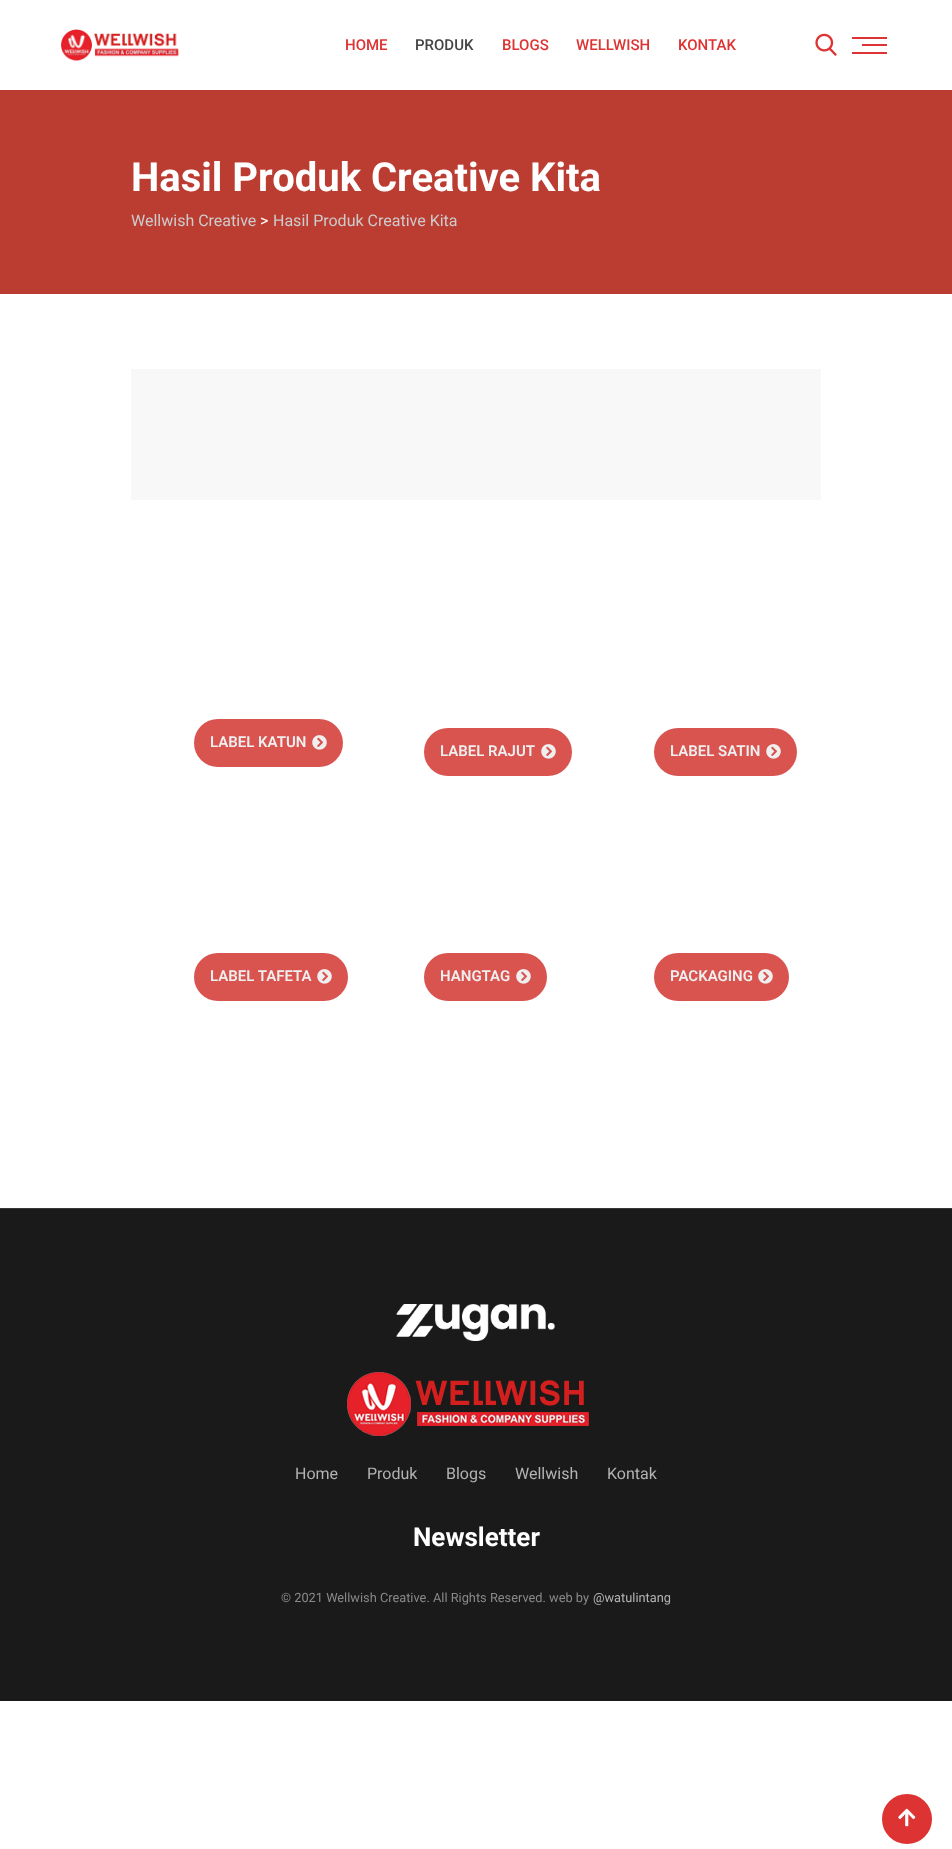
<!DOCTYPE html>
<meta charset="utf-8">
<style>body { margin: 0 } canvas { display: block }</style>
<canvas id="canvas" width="952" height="1849"></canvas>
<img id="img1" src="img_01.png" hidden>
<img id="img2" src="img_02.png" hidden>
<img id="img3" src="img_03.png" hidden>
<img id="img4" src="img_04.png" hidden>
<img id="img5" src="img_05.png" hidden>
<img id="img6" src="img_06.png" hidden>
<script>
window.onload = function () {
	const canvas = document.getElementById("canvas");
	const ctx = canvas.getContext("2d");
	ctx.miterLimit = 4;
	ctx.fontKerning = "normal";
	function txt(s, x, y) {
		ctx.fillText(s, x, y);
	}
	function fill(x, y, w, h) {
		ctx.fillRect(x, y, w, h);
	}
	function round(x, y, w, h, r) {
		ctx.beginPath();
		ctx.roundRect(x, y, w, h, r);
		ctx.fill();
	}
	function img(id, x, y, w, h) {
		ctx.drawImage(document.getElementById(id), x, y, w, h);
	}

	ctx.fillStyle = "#FFFFFF";
	fill(0, 0, 952, 1849);
	img("img1", 61, 29, 118, 32);
	img("img2", 815, 33, 22, 23);
	ctx.fillStyle = "#DD3333";
	fill(852, 37, 35, 2);
	fill(862, 44, 25, 2);
	fill(852, 52, 35, 2);
	ctx.fillStyle = "#BB3D32";
	fill(0, 90, 952, 204);
	ctx.fillStyle = "#F8F8F8";
	fill(131, 369, 690, 131);
	ctx.fillStyle = "#D9534F";
	round(194, 719, 149, 48, 24);
	img("img3", 312, 735, 15, 15);
	round(424, 728, 148, 48, 24);
	img("img3", 541, 744, 15, 15);
	round(654, 728, 143, 48, 24);
	img("img3", 766, 744, 15, 15);
	round(194, 953, 154, 48, 24);
	img("img3", 317, 969, 15, 15);
	round(424, 953, 123, 48, 24);
	img("img3", 516, 969, 15, 15);
	round(654, 953, 135, 48, 24);
	img("img3", 758, 969, 15, 15);
	ctx.fillStyle = "#1A1A1A";
	fill(0, 1209, 952, 492);
	ctx.fillStyle = "#373737";
	fill(0, 1208, 952, 1);
	img("img4", 396, 1304, 159, 37);
	img("img5", 347, 1372, 242, 64);
	ctx.fillStyle = "#DD3333";
	ctx.beginPath();
	ctx.arc(907, 1819, 24, 0, Math.PI * 2);
	ctx.fill();
	ctx.strokeStyle = "#DD3333";
	ctx.lineWidth = 2;
	ctx.stroke();
	img("img6", 898, 1808, 18, 19);
	ctx.font = "500 15px Roboto";
	txt("HOME", 345, 50);
	ctx.fillStyle = "#444444";
	txt("PRODUK", 415, 50);
	ctx.fillStyle = "#DD3333";
	txt("BLOGS", 502, 50);
	txt("WELLWISH", 576, 50);
	txt("KONTAK", 678, 50);
	ctx.font = "bold 40px Roboto";
	ctx.fillStyle = "#FFFFFF";
	txt("Hasil Produk Creative Kita", 131, 191);
	ctx.font = "16px Roboto";
	ctx.fillStyle = "#CCCCCC";
	txt("Wellwish Creative", 131, 226);
	ctx.fillStyle = "#FFFFFF";
	txt(">", 260, 226);
	ctx.fillStyle = "#CCCCCC";
	txt("Hasil Produk Creative Kita", 273, 226);
	ctx.font = "600 15px Roboto";
	ctx.fillStyle = "#EFEFEF";
	txt("LABEL KATUN", 210, 747);
	txt("LABEL RAJUT", 440, 756);
	txt("LABEL SATIN", 670, 756);
	txt("LABEL TAFETA", 210, 981);
	txt("HANGTAG", 440, 981);
	txt("PACKAGING", 670, 981);
	ctx.font = "16px Roboto";
	ctx.fillStyle = "#B3B3B3";
	txt("Home", 295, 1479);
	txt("Produk", 367, 1479);
	txt("Blogs", 446, 1479);
	txt("Wellwish", 515, 1479);
	txt("Kontak", 607, 1479);
	ctx.font = "bold 26px Roboto";
	ctx.fillStyle = "#FFFFFF";
	txt("Newsletter", 413, 1546);
	ctx.font = "12.8px Roboto";
	ctx.fillStyle = "#898989";
	txt("© 2021 Wellwish Creative. All Rights Reserved. web by", 281, 1602);
	ctx.fillStyle = "#B3B3B3";
	txt("@watulintang", 593, 1602);
};
</script>
